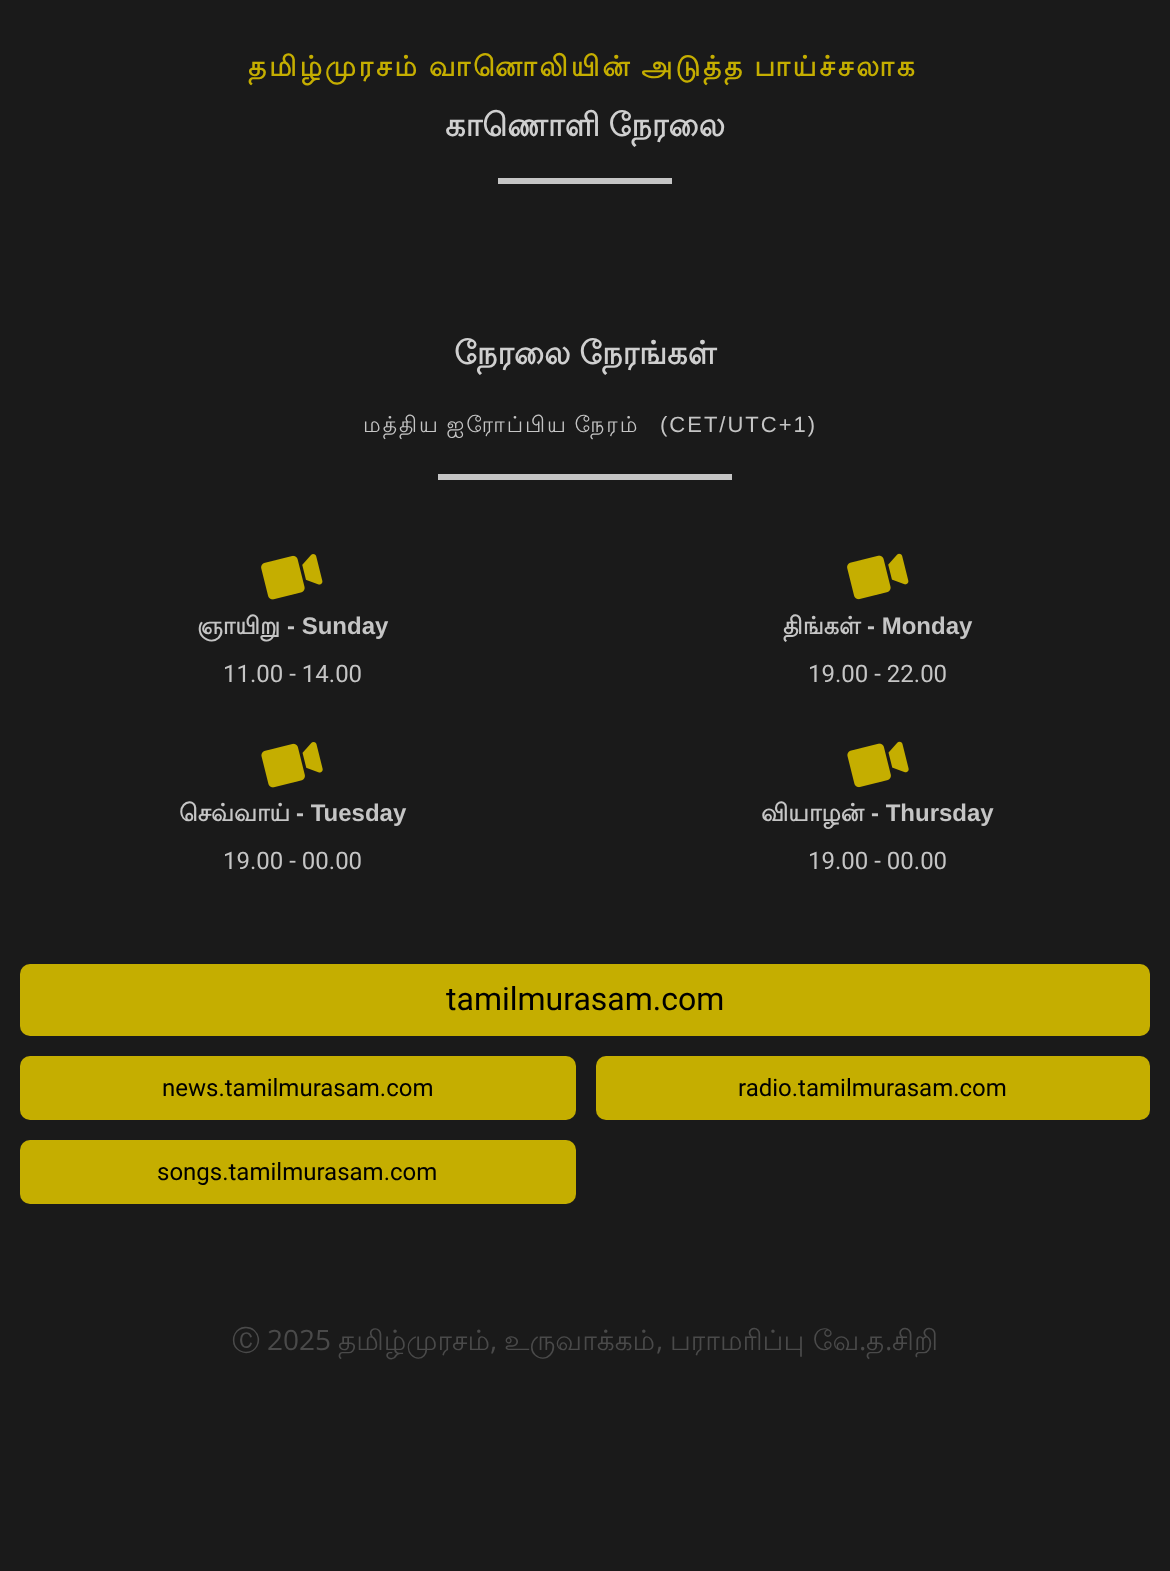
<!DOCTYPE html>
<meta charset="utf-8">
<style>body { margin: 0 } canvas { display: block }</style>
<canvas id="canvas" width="1170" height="1571"></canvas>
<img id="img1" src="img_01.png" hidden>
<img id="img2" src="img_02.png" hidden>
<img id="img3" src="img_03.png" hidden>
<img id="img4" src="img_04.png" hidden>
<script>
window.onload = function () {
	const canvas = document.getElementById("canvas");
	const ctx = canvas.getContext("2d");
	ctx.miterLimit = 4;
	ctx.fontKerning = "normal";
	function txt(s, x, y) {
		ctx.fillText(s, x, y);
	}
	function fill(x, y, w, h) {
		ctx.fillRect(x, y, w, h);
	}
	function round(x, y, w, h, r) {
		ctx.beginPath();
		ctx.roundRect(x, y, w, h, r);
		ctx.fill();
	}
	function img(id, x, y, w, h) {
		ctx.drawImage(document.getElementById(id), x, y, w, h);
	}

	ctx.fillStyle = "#1A1A1A";
	fill(0, 0, 1170, 1571);
	ctx.fillStyle = "#C5C5C5";
	fill(498, 178, 174, 6);
	fill(438, 474, 294, 6);
	img("img1", 261, 554, 62, 46);
	img("img2", 847, 553, 62, 47);
	img("img3", 261, 742, 62, 46);
	img("img4", 847, 741, 62, 47);
	ctx.fillStyle = "#C5AE00";
	round(20, 964, 1130, 72, 10);
	round(20, 1056, 556, 64, 10);
	round(596, 1056, 554, 64, 10);
	round(20, 1140, 556, 64, 10);
	ctx.letterSpacing = "2.8px";
	ctx.wordSpacing = "-2px";
	ctx.font = "bold 28px Lohit Tamil";
	txt("தமிழ்முரசம் வானொலியின் அடுத்த பாய்ச்சலாக", 248, 76);
	ctx.letterSpacing = "0px";
	ctx.wordSpacing = "-1px";
	ctx.font = "bold 32px Lohit Tamil";
	ctx.fillStyle = "#CFCFCF";
	txt("காணொளி நேரலை", 445, 136);
	txt("நேரலை நேரங்கள்", 454, 364);
	ctx.letterSpacing = "2px";
	ctx.wordSpacing = "-2px";
	ctx.font = "22px Lohit Tamil";
	ctx.fillStyle = "#C5C5C5";
	txt("மத்திய ஐரோப்பிய நேரம்", 363, 432);
	ctx.wordSpacing = "0px";
	ctx.font = "22px Liberation Sans";
	txt("(CET/UTC+1)", 660, 432);
	ctx.letterSpacing = "0px";
	ctx.font = "bold 24px Lohit Tamil";
	txt("ஞாயிறு", 197, 634);
	ctx.font = "bold 24px Liberation Sans";
	txt("- Sunday", 287, 634);
	ctx.font = "24px Roboto";
	txt("11.00 - 14.00", 223, 682);
	ctx.font = "bold 24px Lohit Tamil";
	txt("திங்கள்", 783, 634);
	ctx.font = "bold 24px Liberation Sans";
	txt("- Monday", 867, 634);
	ctx.font = "24px Roboto";
	txt("19.00 - 22.00", 808, 682);
	ctx.font = "bold 24px Lohit Tamil";
	txt("செவ்வாய்", 179, 821);
	ctx.font = "bold 24px Liberation Sans";
	txt("- Tuesday", 296, 821);
	ctx.font = "24px Roboto";
	txt("19.00 - 00.00", 223, 869);
	ctx.font = "bold 24px Lohit Tamil";
	txt("வியாழன்", 761, 821);
	ctx.font = "bold 24px Liberation Sans";
	txt("- Thursday", 871, 821);
	ctx.font = "24px Roboto";
	txt("19.00 - 00.00", 808, 869);
	ctx.font = "32px Roboto";
	ctx.fillStyle = "#000000";
	txt("tamilmurasam.com", 446, 1010);
	ctx.font = "24px Roboto";
	txt("news.tamilmurasam.com", 162, 1096);
	txt("radio.tamilmurasam.com", 738, 1096);
	txt("songs.tamilmurasam.com", 157, 1180);
	ctx.font = "500 28px WenQuanYi Zen Hei";
	ctx.fillStyle = "#4A4A4A";
	txt("Ⓒ", 232, 1350);
	ctx.font = "28px Open Sans";
	txt("2025", 267, 1350);
	ctx.font = "28px Lohit Tamil";
	txt("தமிழ்முரசம்", 338, 1350);
	ctx.font = "28px Open Sans";
	txt(",", 490, 1350);
	ctx.font = "28px Lohit Tamil";
	txt("உருவாக்கம்", 504, 1350);
	ctx.font = "28px Open Sans";
	txt(",", 656, 1350);
	ctx.font = "28px Lohit Tamil";
	txt("பராமரிப்பு வே", 670, 1350);
	ctx.font = "28px Open Sans";
	txt(".", 859, 1350);
	ctx.font = "28px Lohit Tamil";
	txt("த", 866, 1350);
	ctx.font = "28px Open Sans";
	txt(".", 885, 1350);
	ctx.font = "28px Lohit Tamil";
	txt("சிறி", 892, 1350);
};
</script>
